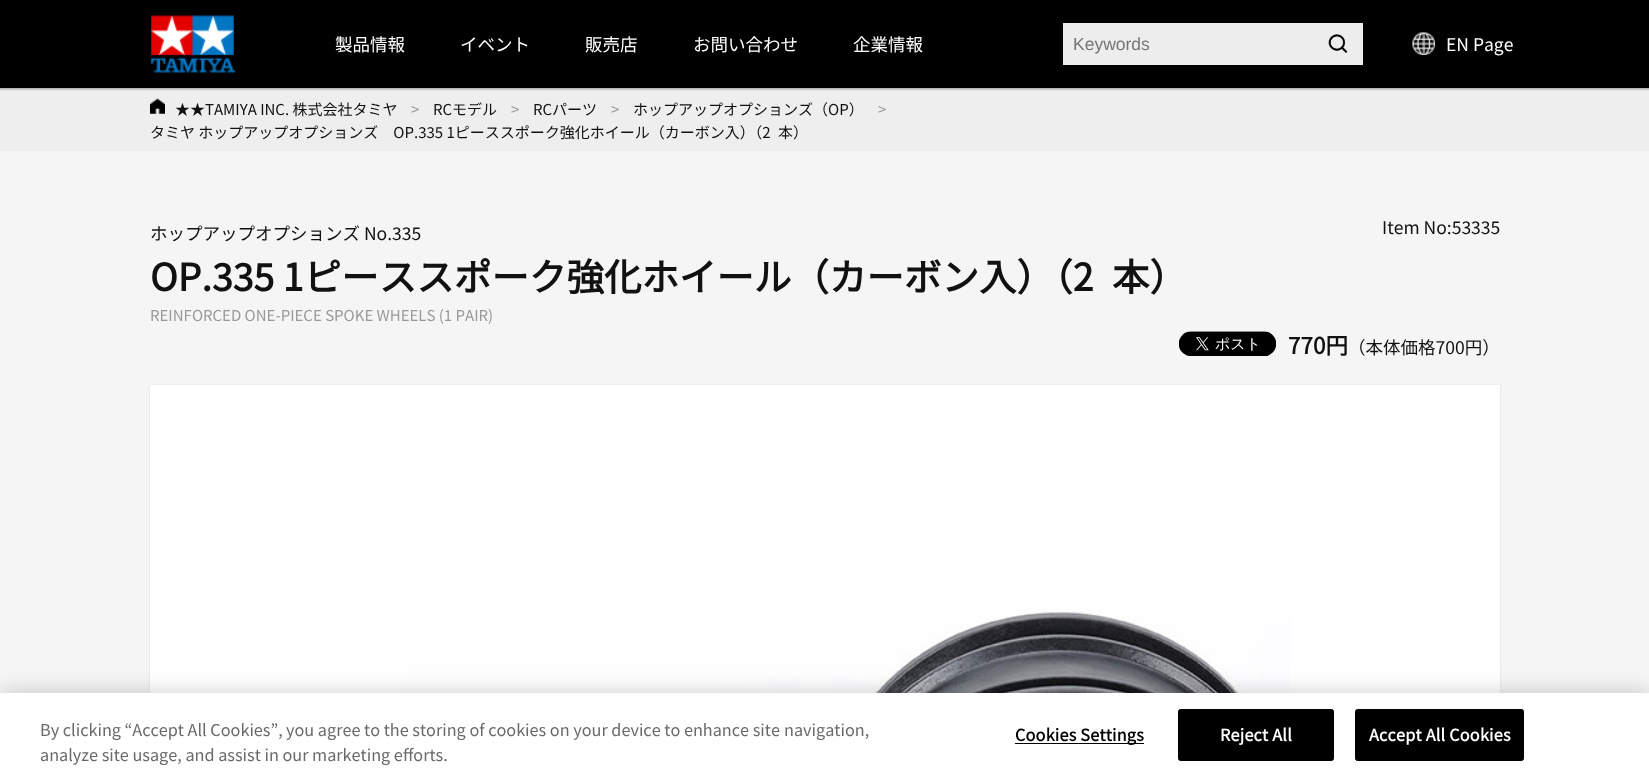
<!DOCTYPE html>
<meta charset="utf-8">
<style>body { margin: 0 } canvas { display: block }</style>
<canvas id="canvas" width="1649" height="778"></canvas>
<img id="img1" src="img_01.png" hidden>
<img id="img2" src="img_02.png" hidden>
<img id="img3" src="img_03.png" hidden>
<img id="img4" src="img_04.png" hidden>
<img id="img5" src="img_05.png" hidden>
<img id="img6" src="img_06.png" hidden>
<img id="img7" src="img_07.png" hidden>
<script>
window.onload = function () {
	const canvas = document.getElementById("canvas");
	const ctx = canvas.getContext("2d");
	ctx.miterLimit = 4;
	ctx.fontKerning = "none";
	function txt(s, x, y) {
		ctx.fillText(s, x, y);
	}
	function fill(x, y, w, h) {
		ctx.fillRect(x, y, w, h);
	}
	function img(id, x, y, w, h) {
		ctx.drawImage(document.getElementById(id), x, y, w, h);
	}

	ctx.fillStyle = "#F5F5F5";
	fill(0, 0, 1649, 778);
	ctx.fillStyle = "#000000";
	fill(0, 0, 1649, 88);
	img("img1", 151, 15, 84, 58);
	ctx.fillStyle = "#EDEDED";
	fill(1063, 23, 300, 42);
	img("img2", 1328, 34, 20, 19);
	img("img3", 1412, 32, 23, 23);
	ctx.fillStyle = "#EEEEEE";
	fill(0, 88, 1649, 63);
	img("img4", 0, 88, 1649, 3);
	img("img5", 150, 98, 15, 16);
	img("img6", 1179, 331, 97, 25);
	ctx.fillStyle = "rgba(0, 0, 0, 0.1)";
	ctx.filter = "blur(1px)";
	ctx.beginPath();
	ctx.rect(150, 385, 1350, 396);
	ctx.fill();
	ctx.filter = "none";
	ctx.fillStyle = "#FFFFFF";
	fill(150, 385, 1350, 308);
	img("img7", 403, 609, 887, 84);
	ctx.fillStyle = "rgba(0, 0, 0, 0.2)";
	ctx.filter = "blur(11px)";
	ctx.beginPath();
	ctx.rect(0, 693, 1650, 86);
	ctx.fill();
	ctx.filter = "none";
	ctx.fillStyle = "#FFFFFF";
	fill(0, 693, 1649, 85);
	ctx.fillStyle = "#000000";
	fill(1015, 743, 129, 1);
	ctx.beginPath();
	ctx.roundRect(1178.5, 709.5, 155, 51, 2);
	ctx.fill();
	ctx.strokeStyle = "#000000";
	ctx.stroke();
	ctx.beginPath();
	ctx.roundRect(1355.5, 709.5, 168, 51, 2);
	ctx.fill();
	ctx.stroke();
	ctx.font = "100 17.5px Noto Sans JP";
	ctx.fillStyle = "#FFFFFF";
	txt("製品情報", 335, 51);
	txt("イベント", 460, 51);
	txt("販売店", 585, 51);
	txt("お問い合わせ", 693, 51);
	txt("企業情報", 853, 51);
	ctx.font = "17.5px Liberation Sans";
	ctx.fillStyle = "#757575";
	txt("Keywords", 1073, 50);
	ctx.font = "100 17.5px Noto Sans JP";
	ctx.fillStyle = "#FFFFFF";
	txt("EN Page", 1446, 51);
	ctx.font = "100 15px Noto Sans JP";
	ctx.fillStyle = "#111111";
	txt("★★TAMIYA INC. 株式会社タミヤ", 175, 115);
	ctx.fillStyle = "#999999";
	txt(">", 411, 115);
	ctx.fillStyle = "#111111";
	txt("RCモデル", 433, 115);
	ctx.fillStyle = "#999999";
	txt(">", 511, 115);
	ctx.fillStyle = "#111111";
	txt("RCパーツ", 533, 115);
	ctx.fillStyle = "#999999";
	txt(">", 611, 115);
	ctx.fillStyle = "#111111";
	txt("ホップアップオプションズ（OP）", 633, 115);
	ctx.fillStyle = "#999999";
	txt(">", 878, 115);
	ctx.fillStyle = "#111111";
	txt("タミヤ ホップアップオプションズ　OP.335 1ピーススポーク強化ホイール（カーボン入）（2", 150, 138);
	txt("本）", 778, 138);
	ctx.font = "100 17.5px Noto Sans JP";
	txt("ホップアップオプションズ No.335", 150, 240);
	txt("Item No:53335", 1382, 234);
	ctx.font = "bold 37.5px Noto Sans JP";
	txt("OP.335 1ピー", 150, 291);
	txt("ススポーク強化ホイール（カーボン入）（2", 379, 291);
	txt("本）", 1112, 291);
	ctx.font = "100 15px Noto Sans JP";
	ctx.fillStyle = "#999999";
	txt("REINFORCED ONE-PIECE SPOKE WHEELS (1 PAIR)", 150, 321);
	ctx.font = "bold 22.5px Noto Sans JP";
	ctx.fillStyle = "#111111";
	txt("770円", 1288, 354);
	ctx.font = "100 17.5px Noto Sans JP";
	txt("（本体価格700円）", 1348, 354);
	ctx.font = "100 16.25px Noto Sans JP";
	ctx.fillStyle = "#696969";
	txt("By clicking “Accept All Cookies”,", 40, 736);
	txt("you agree to the storing of cookies on your device to enhance site", 286, 736);
	txt("navigation,", 784, 736);
	txt("analyze site usage, and assist in our marketing efforts.", 40, 761);
	ctx.letterSpacing = "0.2px";
	ctx.font = "bold 16.25px Noto Sans JP";
	ctx.fillStyle = "#000000";
	txt("Cookies Settings", 1015, 741);
	ctx.fillStyle = "#FFFFFF";
	txt("Reject All", 1220, 741);
	txt("Accept All Cookies", 1369, 741);
};
</script>
